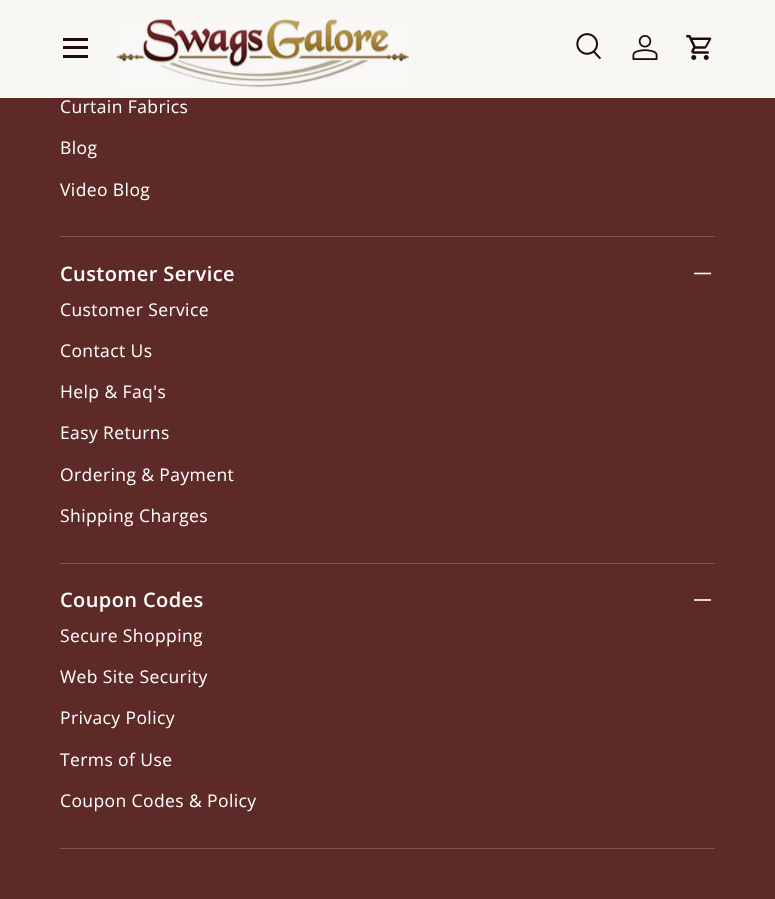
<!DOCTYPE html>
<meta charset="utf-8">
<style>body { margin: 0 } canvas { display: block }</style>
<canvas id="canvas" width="775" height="899"></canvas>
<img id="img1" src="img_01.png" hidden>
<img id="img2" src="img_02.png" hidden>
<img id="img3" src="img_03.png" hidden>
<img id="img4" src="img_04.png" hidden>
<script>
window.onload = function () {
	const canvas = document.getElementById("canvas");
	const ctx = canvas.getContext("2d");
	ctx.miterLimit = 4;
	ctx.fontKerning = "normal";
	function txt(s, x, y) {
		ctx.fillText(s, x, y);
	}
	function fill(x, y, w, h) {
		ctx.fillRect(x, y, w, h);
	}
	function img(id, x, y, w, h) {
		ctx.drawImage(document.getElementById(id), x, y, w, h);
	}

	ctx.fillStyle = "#5E2A28";
	fill(0, 0, 775, 899);
	ctx.fillStyle = "#F9F7F4";
	fill(0, 0, 775, 98);
	ctx.fillStyle = "#200B0A";
	fill(63, 38, 25, 3);
	fill(63, 55, 25, 3);
	fill(63, 46, 25, 3);
	img("img1", 115, 19, 295, 69);
	img("img2", 576, 33, 25, 27);
	img("img3", 632, 35, 26, 25);
	img("img4", 686, 35, 26, 25);
	ctx.fillStyle = "#F9F7F0";
	fill(0, 96, 775, 1);
	ctx.fillStyle = "#7E5553";
	fill(60, 236, 655, 1);
	fill(60, 563, 655, 1);
	ctx.beginPath();
	ctx.moveTo(694, 273.5);
	ctx.lineTo(711, 273.5);
	ctx.strokeStyle = "#FFFFFF";
	ctx.lineWidth = 1.6;
	ctx.stroke();
	fill(60, 848, 655, 1);
	ctx.fillStyle = "#DFD4D4";
	fill(694, 599, 17, 2);
	ctx.letterSpacing = "0.4px";
	ctx.font = "17.5px Open Sans";
	ctx.fillStyle = "#FFFFFF";
	txt("Curtain Fabrics", 60, 113);
	txt("Blog", 60, 154);
	txt("Video Blog", 60, 196);
	ctx.font = "600 20px Open Sans";
	txt("Customer Service", 60, 281);
	ctx.font = "17.5px Open Sans";
	txt("Customer Service", 60, 316);
	txt("Contact Us", 60, 357);
	txt("Help & Faq's", 60, 398);
	txt("Easy Returns", 60, 439);
	txt("Ordering & Payment", 60, 481);
	txt("Shipping Charges", 60, 522);
	ctx.font = "600 20px Open Sans";
	txt("Coupon Codes", 60, 607);
	ctx.font = "17.5px Open Sans";
	txt("Secure Shopping", 60, 642);
	txt("Web Site Security", 60, 683);
	txt("Privacy Policy", 60, 724);
	txt("Terms of Use", 60, 766);
	txt("Coupon Codes & Policy", 60, 807);
};
</script>
